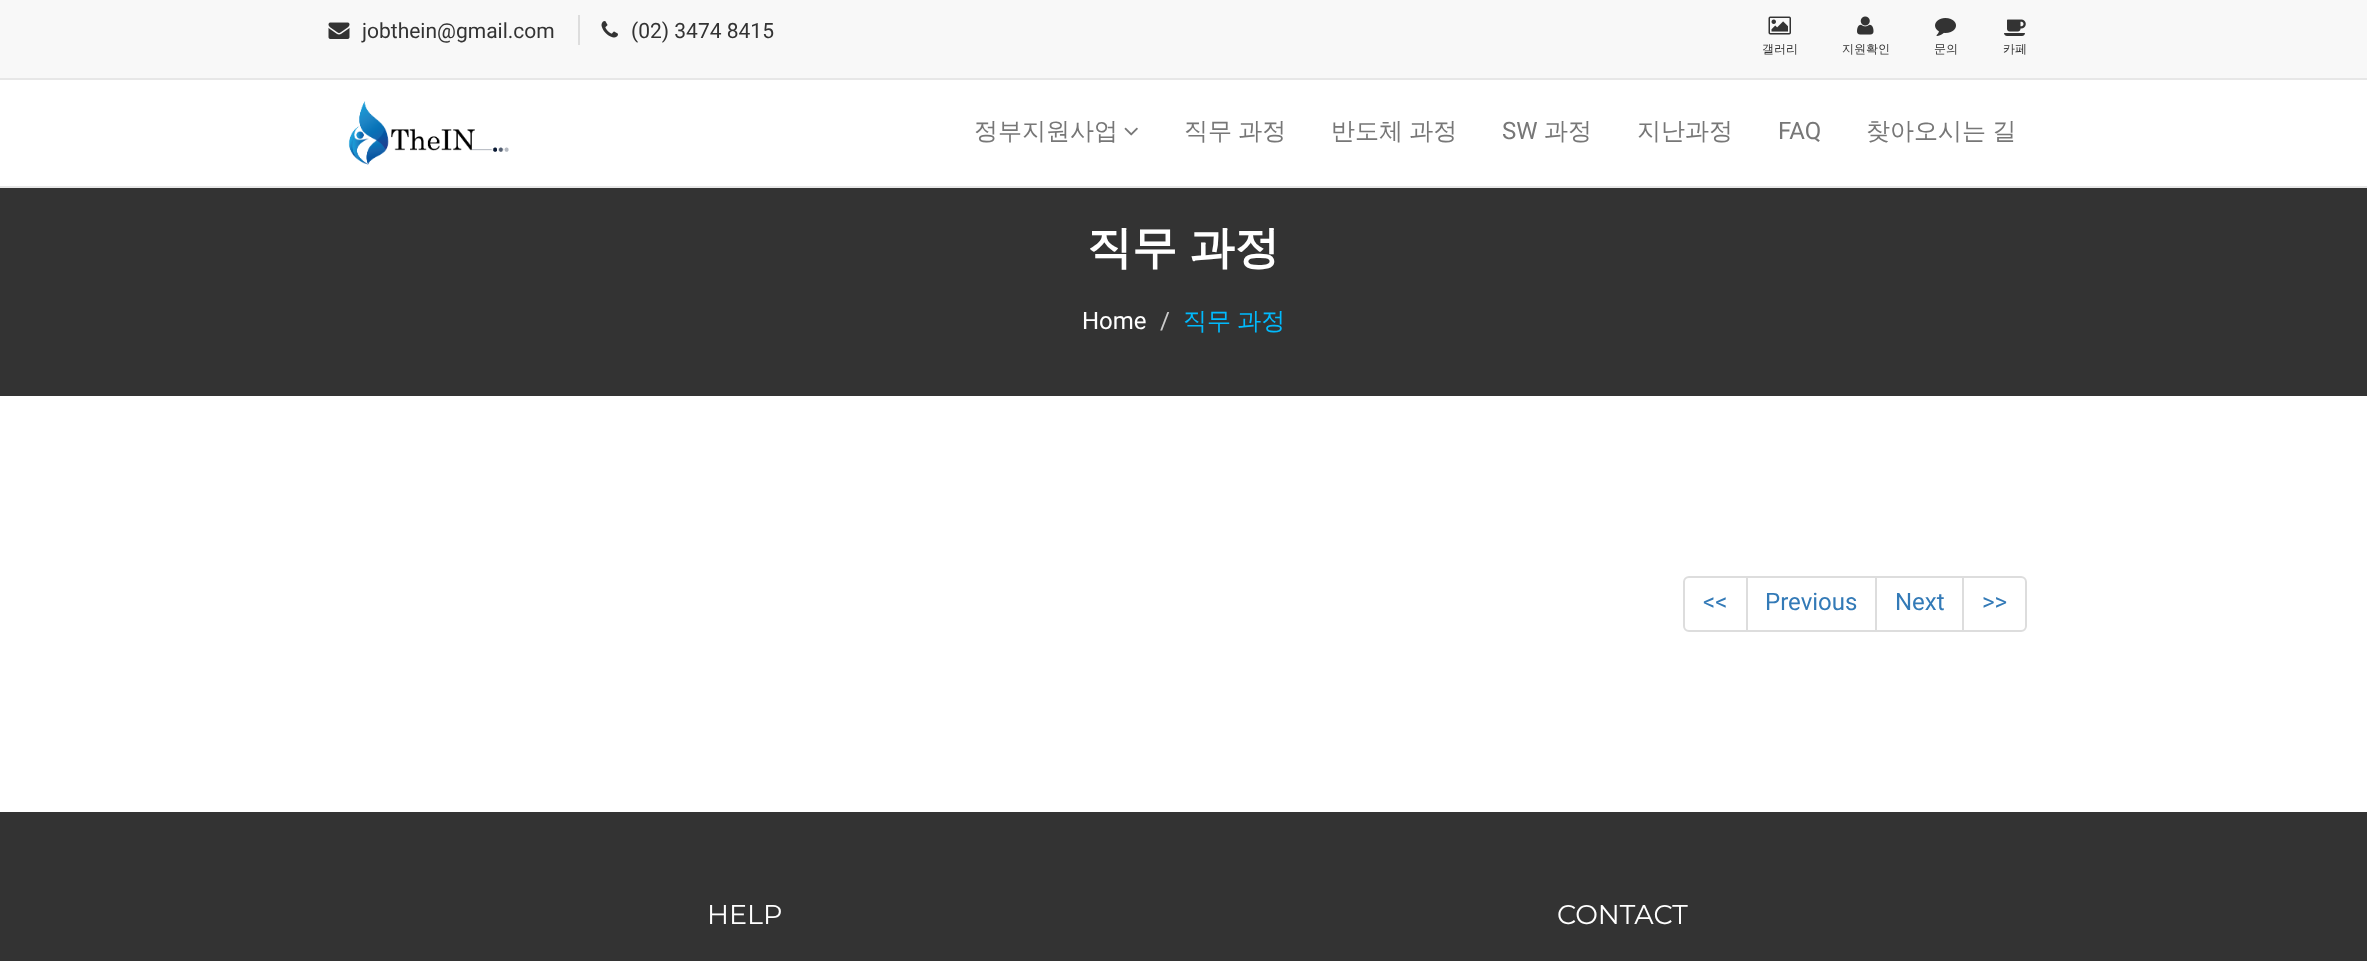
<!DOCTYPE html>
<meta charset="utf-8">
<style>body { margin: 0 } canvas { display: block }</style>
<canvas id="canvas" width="2367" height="961"></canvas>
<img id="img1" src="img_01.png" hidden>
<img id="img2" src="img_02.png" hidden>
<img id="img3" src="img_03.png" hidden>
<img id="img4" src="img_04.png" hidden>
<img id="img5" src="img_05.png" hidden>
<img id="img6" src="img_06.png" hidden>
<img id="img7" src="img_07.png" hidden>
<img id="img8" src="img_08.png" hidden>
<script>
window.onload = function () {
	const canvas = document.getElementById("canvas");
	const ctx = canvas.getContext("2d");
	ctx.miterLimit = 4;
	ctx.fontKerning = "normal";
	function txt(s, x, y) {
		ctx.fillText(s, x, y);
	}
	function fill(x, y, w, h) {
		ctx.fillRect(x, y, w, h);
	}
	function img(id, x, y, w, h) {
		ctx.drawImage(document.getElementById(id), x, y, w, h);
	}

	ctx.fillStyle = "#FFFFFF";
	fill(0, 0, 2367, 961);
	ctx.fillStyle = "#F8F8F8";
	fill(0, 0, 2367, 78);
	img("img1", 328, 22, 22, 17);
	ctx.fillStyle = "#DDDDDD";
	fill(578, 15, 2, 30);
	img("img2", 601, 21, 17, 17);
	img("img3", 1768, 16, 23, 19);
	img("img4", 1857, 16, 17, 19);
	img("img5", 1935, 18, 21, 18);
	img("img6", 2004, 19, 22, 17);
	ctx.fillStyle = "#E7E7E7";
	fill(0, 78, 2367, 2);
	fill(0, 186, 2367, 2);
	img("img7", 348, 101, 161, 64);
	img("img8", 1124, 127, 14, 9);
	ctx.fillStyle = "#333333";
	fill(0, 188, 2367, 208);
	ctx.beginPath();
	ctx.roundRect(1684, 577, 63, 54, [5, 0, 0, 5]);
	ctx.strokeStyle = "#DDDDDD";
	ctx.lineWidth = 2;
	ctx.stroke();
	ctx.strokeRect(1747, 577, 129, 54);
	ctx.strokeRect(1876, 577, 87, 54);
	ctx.fillStyle = "#FFFFFF";
	ctx.beginPath();
	ctx.roundRect(1963, 577, 63, 54, [0, 5, 5, 0]);
	ctx.fill();
	ctx.stroke();
	ctx.fillStyle = "#333333";
	fill(0, 812, 2367, 149);
	ctx.font = "21px Roboto";
	txt("jobthein@gmail.com", 362, 38);
	txt("(02) 3474 8415", 631, 38);
	ctx.font = "500 12px WenQuanYi Zen Hei";
	txt("갤러리", 1762, 53);
	txt("지원확인", 1842, 53);
	txt("문의", 1934, 53);
	txt("카페", 2003, 53);
	ctx.font = "500 24px WenQuanYi Zen Hei";
	ctx.fillStyle = "#777777";
	txt("정부지원사업", 974, 139);
	ctx.wordSpacing = "-1px";
	txt("직무 과정", 1184, 139);
	txt("반도체 과정", 1331, 139);
	ctx.wordSpacing = "0px";
	ctx.font = "24px Roboto";
	txt("SW", 1502, 139);
	ctx.font = "500 24px WenQuanYi Zen Hei";
	txt("과정", 1544, 139);
	txt("지난과정", 1637, 139);
	ctx.font = "24px Roboto";
	txt("FAQ", 1778, 139);
	ctx.wordSpacing = "-1px";
	ctx.font = "500 24px WenQuanYi Zen Hei";
	txt("찾아오시는 길", 1866, 139);
	ctx.font = "bold 45px WenQuanYi Zen Hei";
	ctx.fillStyle = "#FFFFFF";
	txt("직무 과정", 1087, 263);
	ctx.wordSpacing = "0px";
	ctx.font = "24px Roboto";
	txt("Home", 1082, 329);
	ctx.fillStyle = "#CCCCCC";
	txt("/", 1160, 329);
	ctx.wordSpacing = "-1px";
	ctx.font = "500 24px WenQuanYi Zen Hei";
	ctx.fillStyle = "#01BAFD";
	txt("직무 과정", 1183, 329);
	ctx.wordSpacing = "0px";
	ctx.font = "24px Roboto";
	ctx.fillStyle = "#337AB7";
	txt("<<", 1703, 610);
	txt("Previous", 1765, 610);
	txt("Next", 1895, 610);
	txt(">>", 1982, 610);
	ctx.font = "27px Montserrat";
	ctx.fillStyle = "#FFFFFF";
	txt("HELP", 707, 924);
	txt("CONTACT", 1557, 924);
};
</script>
